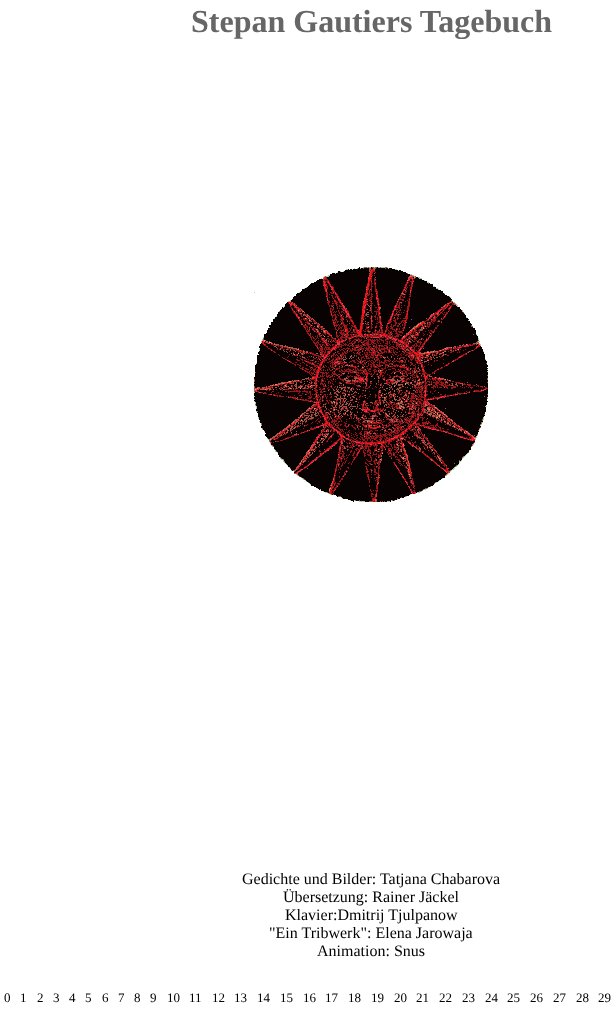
<!DOCTYPE html>
<meta charset="utf-8">
<style>body { margin: 0 } canvas { display: block }</style>
<canvas id="canvas" width="613" height="1030"></canvas>
<img id="img1" src="img_01.png" hidden>
<script>
window.onload = function () {
	const canvas = document.getElementById("canvas");
	const ctx = canvas.getContext("2d");
	ctx.miterLimit = 4;
	ctx.fontKerning = "normal";
	function txt(s, x, y) {
		ctx.fillText(s, x, y);
	}
	function fill(x, y, w, h) {
		ctx.fillRect(x, y, w, h);
	}
	function img(id, x, y, w, h) {
		ctx.drawImage(document.getElementById(id), x, y, w, h);
	}

	ctx.fillStyle = "#FFFFFF";
	fill(0, 0, 613, 1030);
	img("img1", 254, 267, 234, 235);
	ctx.font = "bold 32px Liberation Serif";
	ctx.fillStyle = "#666666";
	txt("Stepan Gautiers Tagebuch", 191, 32);
	ctx.font = "16px Liberation Serif";
	ctx.fillStyle = "#000000";
	txt("Gedichte und Bilder: Tatjana Chabarova", 242, 884);
	txt("Übersetzung: Rainer Jäckel", 283, 902);
	txt("Klavier:Dmitrij Tjulpanow", 285, 920);
	txt("\"Ein Tribwerk\": Elena Jarowaja", 269, 938);
	txt("Animation: Snus", 317, 956);
	ctx.font = "13px Liberation Serif";
	txt("0", 4, 1002);
	txt("1", 20, 1002);
	txt("2", 37, 1002);
	txt("3", 53, 1002);
	txt("4", 69, 1002);
	txt("5", 85, 1002);
	txt("6", 102, 1002);
	txt("7", 118, 1002);
	txt("8", 134, 1002);
	txt("9", 150, 1002);
	txt("10", 167, 1002);
	txt("11", 189, 1002);
	txt("12", 212, 1002);
	txt("13", 234, 1002);
	txt("14", 257, 1002);
	txt("15", 280, 1002);
	txt("16", 303, 1002);
	txt("17", 325, 1002);
	txt("18", 348, 1002);
	txt("19", 371, 1002);
	txt("20", 394, 1002);
	txt("21", 416, 1002);
	txt("22", 439, 1002);
	txt("23", 462, 1002);
	txt("24", 485, 1002);
	txt("25", 507, 1002);
	txt("26", 530, 1002);
	txt("27", 553, 1002);
	txt("28", 576, 1002);
	txt("29", 598, 1002);
};
</script>
